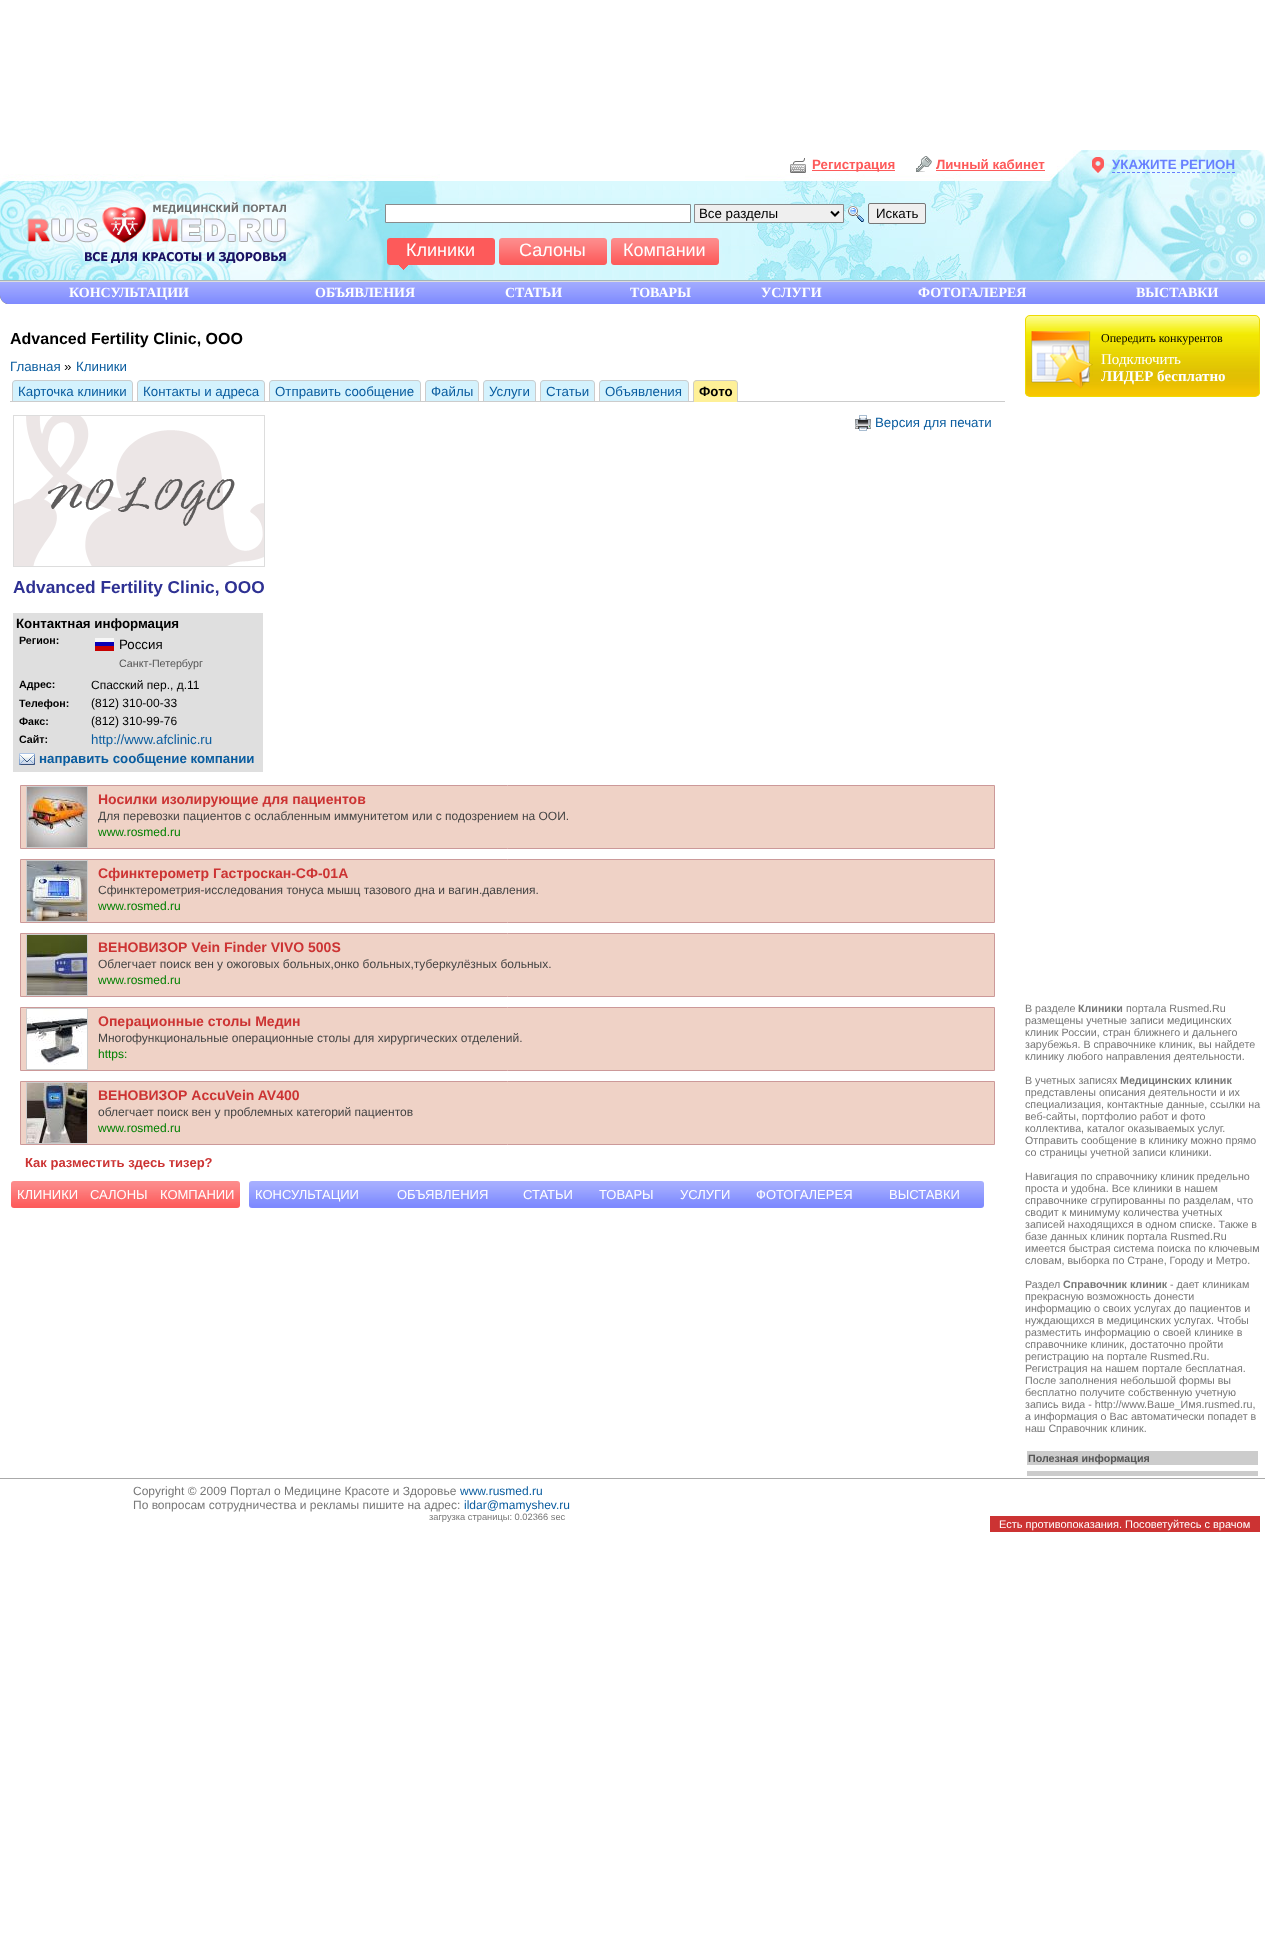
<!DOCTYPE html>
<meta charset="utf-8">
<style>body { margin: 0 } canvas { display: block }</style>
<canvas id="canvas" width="1265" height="1944"></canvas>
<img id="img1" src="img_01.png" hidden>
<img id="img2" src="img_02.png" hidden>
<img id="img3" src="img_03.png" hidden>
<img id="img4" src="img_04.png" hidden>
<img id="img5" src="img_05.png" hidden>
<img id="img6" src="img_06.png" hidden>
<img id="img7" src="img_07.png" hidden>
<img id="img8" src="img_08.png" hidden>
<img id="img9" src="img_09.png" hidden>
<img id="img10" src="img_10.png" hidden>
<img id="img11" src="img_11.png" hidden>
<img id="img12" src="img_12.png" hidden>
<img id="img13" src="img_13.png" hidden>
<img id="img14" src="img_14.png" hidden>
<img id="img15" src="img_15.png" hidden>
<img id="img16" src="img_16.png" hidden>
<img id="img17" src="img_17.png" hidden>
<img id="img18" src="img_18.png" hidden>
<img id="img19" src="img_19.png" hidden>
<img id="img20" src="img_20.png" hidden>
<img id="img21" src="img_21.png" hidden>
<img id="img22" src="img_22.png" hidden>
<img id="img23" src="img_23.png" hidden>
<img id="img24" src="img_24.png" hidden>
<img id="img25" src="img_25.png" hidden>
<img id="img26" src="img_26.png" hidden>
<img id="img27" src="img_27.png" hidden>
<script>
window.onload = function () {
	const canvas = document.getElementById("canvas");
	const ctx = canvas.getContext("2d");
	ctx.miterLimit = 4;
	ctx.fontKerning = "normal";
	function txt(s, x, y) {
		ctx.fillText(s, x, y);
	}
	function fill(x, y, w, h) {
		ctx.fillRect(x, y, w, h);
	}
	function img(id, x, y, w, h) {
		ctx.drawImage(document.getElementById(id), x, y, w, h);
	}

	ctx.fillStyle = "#FFFFFF";
	fill(0, 0, 1265, 1944);
	img("img1", 440, 181, 305, 99);
	ctx.fillStyle = "#A3B5B9";
	fill(0, 280, 1265, 1);
	img("img2", 0, 174, 440, 106);
	img("img3", 745, 150, 520, 130);
	img("img4", 790, 158, 16, 15);
	ctx.fillStyle = "#FD5A5A";
	fill(812, 170, 83, 1);
	img("img5", 916, 156, 16, 16);
	fill(936, 170, 109, 1);
	img("img6", 10, 181, 295, 100);
	ctx.fillStyle = "#FFFFFF";
	ctx.beginPath();
	ctx.rect(385.5, 204.5, 305, 18);
	ctx.fill();
	ctx.strokeStyle = "#898B8C";
	ctx.stroke();
	ctx.fillStyle = "#EFEFEF";
	ctx.beginPath();
	ctx.rect(694.5, 204.5, 149, 18);
	ctx.fill();
	ctx.stroke();
	ctx.beginPath();
	ctx.moveTo(831, 211.5);
	ctx.lineTo(835, 215.5);
	ctx.lineTo(839, 211.5);
	ctx.strokeStyle = "#000000";
	ctx.lineWidth = 2;
	ctx.stroke();
	img("img7", 848, 206, 16, 16);
	ctx.beginPath();
	ctx.roundRect(868.5, 203.5, 57, 20, 1.5);
	ctx.fill();
	ctx.strokeStyle = "#767676";
	ctx.lineWidth = 1;
	ctx.stroke();
	img("img8", 387, 238, 108, 32);
	img("img9", 499, 238, 108, 27);
	img("img10", 611, 238, 108, 27);
	img("img11", 1092, 157, 12, 16);
	ctx.beginPath();
	ctx.moveTo(1112, 172.5);
	ctx.lineTo(1235, 172.5);
	ctx.strokeStyle = "#6780FF";
	ctx.setLineDash([3, 2]);
	ctx.stroke();
	img("img12", 0, 282, 1265, 22);
	ctx.fillStyle = "#DDDDDD";
	fill(0, 281, 1265, 1);
	img("img13", 0, 295, 7, 9);
	img("img14", 1258, 295, 7, 9);
	ctx.fillStyle = "#CCCCCC";
	fill(10, 401, 995, 1);
	ctx.fillStyle = "#D4F2FD";
	ctx.beginPath();
	ctx.roundRect(12, 380, 121, 21, [4, 4, 0, 0]);
	ctx.fill();
	ctx.fillStyle = "#CCCCCC";
	ctx.beginPath();
	ctx.moveTo(16, 380);
	ctx.lineTo(129, 380);
	ctx.bezierCurveTo(131, 380, 133, 382, 133, 384);
	ctx.lineTo(133, 401);
	ctx.lineTo(12, 401);
	ctx.lineTo(12, 384);
	ctx.bezierCurveTo(12, 382, 14, 380, 16, 380);
	ctx.closePath();
	ctx.moveTo(16, 381);
	ctx.lineTo(129, 381);
	ctx.bezierCurveTo(131, 381, 132, 382, 132, 384);
	ctx.lineTo(132, 401);
	ctx.lineTo(13, 401);
	ctx.lineTo(13, 384);
	ctx.bezierCurveTo(13, 382, 14, 381, 16, 381);
	ctx.closePath();
	ctx.fill("evenodd");
	ctx.fillStyle = "#D4F2FD";
	ctx.beginPath();
	ctx.roundRect(137, 380, 128, 21, [4, 4, 0, 0]);
	ctx.fill();
	ctx.fillStyle = "#CCCCCC";
	ctx.beginPath();
	ctx.moveTo(141, 380);
	ctx.lineTo(261, 380);
	ctx.bezierCurveTo(263, 380, 265, 382, 265, 384);
	ctx.lineTo(265, 401);
	ctx.lineTo(137, 401);
	ctx.lineTo(137, 384);
	ctx.bezierCurveTo(137, 382, 139, 380, 141, 380);
	ctx.closePath();
	ctx.moveTo(141, 381);
	ctx.lineTo(261, 381);
	ctx.bezierCurveTo(263, 381, 264, 382, 264, 384);
	ctx.lineTo(264, 401);
	ctx.lineTo(138, 401);
	ctx.lineTo(138, 384);
	ctx.bezierCurveTo(138, 382, 139, 381, 141, 381);
	ctx.closePath();
	ctx.fill("evenodd");
	ctx.fillStyle = "#D4F2FD";
	ctx.beginPath();
	ctx.roundRect(269, 380, 152, 21, [4, 4, 0, 0]);
	ctx.fill();
	ctx.fillStyle = "#CCCCCC";
	ctx.beginPath();
	ctx.moveTo(273, 380);
	ctx.lineTo(417, 380);
	ctx.bezierCurveTo(419, 380, 421, 382, 421, 384);
	ctx.lineTo(421, 401);
	ctx.lineTo(269, 401);
	ctx.lineTo(269, 384);
	ctx.bezierCurveTo(269, 382, 271, 380, 273, 380);
	ctx.closePath();
	ctx.moveTo(273, 381);
	ctx.lineTo(417, 381);
	ctx.bezierCurveTo(419, 381, 420, 382, 420, 384);
	ctx.lineTo(420, 401);
	ctx.lineTo(270, 401);
	ctx.lineTo(270, 384);
	ctx.bezierCurveTo(270, 382, 271, 381, 273, 381);
	ctx.closePath();
	ctx.fill("evenodd");
	ctx.fillStyle = "#D4F2FD";
	ctx.beginPath();
	ctx.roundRect(425, 380, 54, 21, [4, 4, 0, 0]);
	ctx.fill();
	ctx.fillStyle = "#CCCCCC";
	ctx.beginPath();
	ctx.moveTo(429, 380);
	ctx.lineTo(475, 380);
	ctx.bezierCurveTo(477, 380, 479, 382, 479, 384);
	ctx.lineTo(479, 401);
	ctx.lineTo(425, 401);
	ctx.lineTo(425, 384);
	ctx.bezierCurveTo(425, 382, 427, 380, 429, 380);
	ctx.closePath();
	ctx.moveTo(429, 381);
	ctx.lineTo(475, 381);
	ctx.bezierCurveTo(477, 381, 478, 382, 478, 384);
	ctx.lineTo(478, 401);
	ctx.lineTo(426, 401);
	ctx.lineTo(426, 384);
	ctx.bezierCurveTo(426, 382, 427, 381, 429, 381);
	ctx.closePath();
	ctx.fill("evenodd");
	ctx.fillStyle = "#D4F2FD";
	ctx.beginPath();
	ctx.roundRect(483, 380, 53, 21, [4, 4, 0, 0]);
	ctx.fill();
	ctx.fillStyle = "#CCCCCC";
	ctx.beginPath();
	ctx.moveTo(487, 380);
	ctx.lineTo(532, 380);
	ctx.bezierCurveTo(534, 380, 536, 382, 536, 384);
	ctx.lineTo(536, 401);
	ctx.lineTo(483, 401);
	ctx.lineTo(483, 384);
	ctx.bezierCurveTo(483, 382, 485, 380, 487, 380);
	ctx.closePath();
	ctx.moveTo(487, 381);
	ctx.lineTo(532, 381);
	ctx.bezierCurveTo(534, 381, 535, 382, 535, 384);
	ctx.lineTo(535, 401);
	ctx.lineTo(484, 401);
	ctx.lineTo(484, 384);
	ctx.bezierCurveTo(484, 382, 485, 381, 487, 381);
	ctx.closePath();
	ctx.fill("evenodd");
	ctx.fillStyle = "#D4F2FD";
	ctx.beginPath();
	ctx.roundRect(540, 380, 55, 21, [4, 4, 0, 0]);
	ctx.fill();
	ctx.fillStyle = "#CCCCCC";
	ctx.beginPath();
	ctx.moveTo(544, 380);
	ctx.lineTo(591, 380);
	ctx.bezierCurveTo(593, 380, 595, 382, 595, 384);
	ctx.lineTo(595, 401);
	ctx.lineTo(540, 401);
	ctx.lineTo(540, 384);
	ctx.bezierCurveTo(540, 382, 542, 380, 544, 380);
	ctx.closePath();
	ctx.moveTo(544, 381);
	ctx.lineTo(591, 381);
	ctx.bezierCurveTo(593, 381, 594, 382, 594, 384);
	ctx.lineTo(594, 401);
	ctx.lineTo(541, 401);
	ctx.lineTo(541, 384);
	ctx.bezierCurveTo(541, 382, 542, 381, 544, 381);
	ctx.closePath();
	ctx.fill("evenodd");
	ctx.fillStyle = "#D4F2FD";
	ctx.beginPath();
	ctx.roundRect(599, 380, 90, 21, [4, 4, 0, 0]);
	ctx.fill();
	ctx.fillStyle = "#CCCCCC";
	ctx.beginPath();
	ctx.moveTo(603, 380);
	ctx.lineTo(685, 380);
	ctx.bezierCurveTo(687, 380, 689, 382, 689, 384);
	ctx.lineTo(689, 401);
	ctx.lineTo(599, 401);
	ctx.lineTo(599, 384);
	ctx.bezierCurveTo(599, 382, 601, 380, 603, 380);
	ctx.closePath();
	ctx.moveTo(603, 381);
	ctx.lineTo(685, 381);
	ctx.bezierCurveTo(687, 381, 688, 382, 688, 384);
	ctx.lineTo(688, 401);
	ctx.lineTo(600, 401);
	ctx.lineTo(600, 384);
	ctx.bezierCurveTo(600, 382, 601, 381, 603, 381);
	ctx.closePath();
	ctx.fill("evenodd");
	ctx.fillStyle = "#FEF098";
	ctx.beginPath();
	ctx.roundRect(693, 380, 45, 22, [4, 4, 0, 0]);
	ctx.fill();
	ctx.fillStyle = "#CCCCCC";
	ctx.beginPath();
	ctx.moveTo(697, 380);
	ctx.lineTo(734, 380);
	ctx.bezierCurveTo(736, 380, 738, 382, 738, 384);
	ctx.lineTo(738, 402);
	ctx.lineTo(693, 402);
	ctx.lineTo(693, 384);
	ctx.bezierCurveTo(693, 382, 695, 380, 697, 380);
	ctx.closePath();
	ctx.moveTo(697, 381);
	ctx.lineTo(734, 381);
	ctx.bezierCurveTo(736, 381, 737, 382, 737, 384);
	ctx.lineTo(737, 402);
	ctx.lineTo(694, 402);
	ctx.lineTo(694, 384);
	ctx.bezierCurveTo(694, 382, 695, 381, 697, 381);
	ctx.closePath();
	ctx.fill("evenodd");
	img("img15", 855, 415, 16, 16);
	ctx.strokeStyle = "#DDDDDD";
	ctx.setLineDash([]);
	ctx.strokeRect(13.5, 415.5, 251, 151);
	img("img16", 14, 416, 250, 150);
	ctx.fillStyle = "#DFDFDF";
	fill(13, 613, 250, 159);
	img("img17", 95, 638, 19, 13);
	img("img18", 19, 753, 16, 12);
	ctx.fillStyle = "#EFD2C6";
	ctx.beginPath();
	ctx.rect(20.5, 785.5, 974, 63);
	ctx.fill();
	ctx.strokeStyle = "#CC9999";
	ctx.stroke();
	ctx.strokeStyle = "#CCCCCC";
	ctx.strokeRect(26.5, 786.5, 61, 61);
	img("img19", 27, 787, 60, 60);
	ctx.beginPath();
	ctx.rect(20.5, 859.5, 974, 63);
	ctx.fill();
	ctx.strokeStyle = "#CC9999";
	ctx.stroke();
	ctx.strokeStyle = "#CCCCCC";
	ctx.strokeRect(26.5, 860.5, 61, 61);
	img("img20", 27, 861, 60, 60);
	ctx.beginPath();
	ctx.rect(20.5, 933.5, 974, 63);
	ctx.fill();
	ctx.strokeStyle = "#CC9999";
	ctx.stroke();
	ctx.strokeStyle = "#CCCCCC";
	ctx.strokeRect(26.5, 934.5, 61, 61);
	img("img21", 27, 935, 60, 60);
	ctx.beginPath();
	ctx.rect(20.5, 1007.5, 974, 63);
	ctx.fill();
	ctx.strokeStyle = "#CC9999";
	ctx.stroke();
	ctx.strokeStyle = "#CCCCCC";
	ctx.strokeRect(26.5, 1008.5, 61, 61);
	img("img22", 27, 1009, 60, 60);
	ctx.beginPath();
	ctx.rect(20.5, 1081.5, 974, 63);
	ctx.fill();
	ctx.strokeStyle = "#CC9999";
	ctx.stroke();
	ctx.strokeStyle = "#CCCCCC";
	ctx.strokeRect(26.5, 1082.5, 61, 61);
	img("img23", 27, 1083, 60, 60);
	img("img24", 11, 1181, 229, 27);
	img("img25", 249, 1181, 735, 27);
	img("img26", 1025, 315, 235, 81);
	ctx.beginPath();
	ctx.roundRect(1025.5, 315.5, 234, 81, 4.5);
	ctx.strokeStyle = "#EEDA03";
	ctx.stroke();
	img("img27", 1031, 331, 62, 58);
	ctx.fillStyle = "#CCCCCC";
	fill(1027, 1451, 231, 14);
	fill(1027, 1471, 231, 5);
	ctx.fillStyle = "#AAAAAA";
	fill(0, 1478, 1265, 1);
	ctx.fillStyle = "#CC3333";
	fill(990, 1516, 270, 16);
	ctx.font = "bold 13.3px Liberation Sans";
	ctx.fillStyle = "#FD5A5A";
	txt("Регистрация", 812, 169);
	txt("Личный кабинет", 936, 169);
	ctx.font = "13.3px Liberation Sans";
	ctx.fillStyle = "#000000";
	txt("Все разделы", 699, 218);
	txt("Искать", 876, 218);
	ctx.font = "18px Liberation Sans";
	ctx.fillStyle = "#FFFFFF";
	txt("Клиники", 406, 256);
	txt("Салоны", 519, 256);
	txt("Компании", 623, 256);
	ctx.font = "bold 13.3px Liberation Sans";
	ctx.fillStyle = "#6780FF";
	txt("УКАЖИТЕ РЕГИОН", 1112, 169);
	ctx.font = "bold 14px Liberation Serif";
	ctx.fillStyle = "#FFFFFF";
	txt("КОНСУЛЬТАЦИИ", 69, 297);
	txt("ОБЪЯВЛЕНИЯ", 315, 297);
	txt("СТАТЬИ", 505, 297);
	txt("ТОВАРЫ", 630, 297);
	txt("УСЛУГИ", 761, 297);
	txt("ФОТОГАЛЕРЕЯ", 918, 297);
	txt("ВЫСТАВКИ", 1136, 297);
	ctx.font = "bold 16px Liberation Sans";
	ctx.fillStyle = "#000000";
	txt("Advanced Fertility Clinic, ООО", 10, 344);
	ctx.font = "13.3px Liberation Sans";
	ctx.fillStyle = "#095C9F";
	txt("Главная", 10, 371);
	ctx.fillStyle = "#000000";
	txt("»", 64, 371);
	ctx.fillStyle = "#095C9F";
	txt("Клиники", 76, 371);
	txt("Карточка клиники", 18, 396);
	txt("Контакты и адреса", 143, 396);
	txt("Отправить сообщение", 275, 396);
	txt("Файлы", 431, 396);
	txt("Услуги", 489, 396);
	txt("Статьи", 546, 396);
	txt("Объявления", 605, 396);
	ctx.font = "bold 13.3px Liberation Sans";
	ctx.fillStyle = "#000000";
	txt("Фото", 699, 396);
	ctx.font = "13.3px Liberation Sans";
	ctx.fillStyle = "#095C9F";
	txt("Версия для печати", 875, 427);
	ctx.font = "bold 17.3px Liberation Sans";
	ctx.fillStyle = "#2E3193";
	txt("Advanced Fertility Clinic, ООО", 13, 593);
	ctx.font = "bold 13.3px Liberation Sans";
	ctx.fillStyle = "#000000";
	txt("Контактная информация", 16, 628);
	ctx.font = "bold 10.7px Liberation Sans";
	txt("Регион:", 19, 644);
	ctx.font = "13.3px Liberation Sans";
	txt("Россия", 119, 649);
	ctx.font = "10.7px Liberation Sans";
	ctx.fillStyle = "#555555";
	txt("Санкт-Петербург", 119, 667);
	ctx.font = "bold 10.7px Liberation Sans";
	ctx.fillStyle = "#000000";
	txt("Адрес:", 19, 688);
	ctx.font = "12px Liberation Sans";
	txt("Спасский пер., д.11", 91, 689);
	ctx.font = "bold 10.7px Liberation Sans";
	txt("Телефон:", 19, 707);
	ctx.font = "12px Liberation Sans";
	txt("(812) 310-00-33", 91, 707);
	ctx.font = "bold 10.7px Liberation Sans";
	txt("Факс:", 19, 725);
	ctx.font = "12px Liberation Sans";
	txt("(812) 310-99-76", 91, 725);
	ctx.font = "bold 10.7px Liberation Sans";
	txt("Сайт:", 19, 743);
	ctx.font = "13.3px Liberation Sans";
	ctx.fillStyle = "#095C9F";
	txt("http://www.afclinic.ru", 91, 744);
	ctx.font = "bold 13.3px Liberation Sans";
	txt("направить сообщение компании", 39, 763);
	ctx.font = "bold 14px Liberation Sans";
	ctx.fillStyle = "#CC3333";
	txt("Носилки изолирующие для пациентов", 98, 804);
	ctx.font = "12px Liberation Sans";
	ctx.fillStyle = "#444444";
	txt("Для перевозки пациентов с ослабленным иммунитетом или с подозрением на ООИ.", 98, 820);
	ctx.fillStyle = "#008000";
	txt("www.rosmed.ru", 98, 836);
	ctx.font = "bold 14px Liberation Sans";
	ctx.fillStyle = "#CC3333";
	txt("Сфинктерометр Гастроскан-СФ-01А", 98, 878);
	ctx.font = "12px Liberation Sans";
	ctx.fillStyle = "#444444";
	txt("Сфинктерометрия-исследования тонуса мышц тазового дна и вагин.давления.", 98, 894);
	ctx.fillStyle = "#008000";
	txt("www.rosmed.ru", 98, 910);
	ctx.font = "bold 14px Liberation Sans";
	ctx.fillStyle = "#CC3333";
	txt("ВЕНОВИЗОР Vein Finder VIVO 500S", 98, 952);
	ctx.font = "12px Liberation Sans";
	ctx.fillStyle = "#444444";
	txt("Облегчает поиск вен у ожоговых больных,онко больных,туберкулёзных больных.", 98, 968);
	ctx.fillStyle = "#008000";
	txt("www.rosmed.ru", 98, 984);
	ctx.font = "bold 14px Liberation Sans";
	ctx.fillStyle = "#CC3333";
	txt("Операционные столы Медин", 98, 1026);
	ctx.font = "12px Liberation Sans";
	ctx.fillStyle = "#444444";
	txt("Многофункциональные операционные столы для хирургических отделений.", 98, 1042);
	ctx.fillStyle = "#008000";
	txt("https:", 98, 1058);
	ctx.font = "bold 14px Liberation Sans";
	ctx.fillStyle = "#CC3333";
	txt("ВЕНОВИЗОР AccuVein AV400", 98, 1100);
	ctx.font = "12px Liberation Sans";
	ctx.fillStyle = "#444444";
	txt("облегчает поиск вен у проблемных категорий пациентов", 98, 1116);
	ctx.fillStyle = "#008000";
	txt("www.rosmed.ru", 98, 1132);
	ctx.font = "bold 13px Liberation Sans";
	ctx.fillStyle = "#CC3333";
	txt("Как разместить здесь тизер?", 25, 1167);
	ctx.font = "13px Liberation Sans";
	ctx.fillStyle = "#FFFFFF";
	txt("КЛИНИКИ", 17, 1199);
	txt("САЛОНЫ", 90, 1199);
	txt("КОМПАНИИ", 160, 1199);
	txt("КОНСУЛЬТАЦИИ", 255, 1199);
	txt("ОБЪЯВЛЕНИЯ", 397, 1199);
	txt("СТАТЬИ", 523, 1199);
	txt("ТОВАРЫ", 599, 1199);
	txt("УСЛУГИ", 680, 1199);
	txt("ФОТОГАЛЕРЕЯ", 756, 1199);
	txt("ВЫСТАВКИ", 889, 1199);
	ctx.font = "12px Liberation Serif";
	ctx.fillStyle = "#000000";
	txt("Опередить конкурентов", 1101, 342);
	ctx.font = "15px Liberation Serif";
	ctx.fillStyle = "#FFFFFF";
	txt("Подключить", 1101, 364);
	ctx.font = "bold 15px Liberation Serif";
	txt("ЛИДЕР бесплатно", 1101, 381);
	ctx.font = "10.7px Liberation Sans";
	ctx.fillStyle = "#777777";
	txt("В разделе", 1025, 1012);
	ctx.font = "bold 10.7px Liberation Sans";
	txt("Клиники", 1078, 1012);
	ctx.font = "10.7px Liberation Sans";
	txt("портала Rusmed.Ru", 1126, 1012);
	txt("размещены учетные записи медицинских", 1025, 1024);
	txt("клиник России, стран ближнего и дальнего", 1025, 1036);
	txt("зарубежья. В справочнике клиник, вы найдете", 1025, 1048);
	txt("клинику любого направления деятельности.", 1025, 1060);
	txt("В учетных записях", 1025, 1084);
	ctx.font = "bold 10.7px Liberation Sans";
	txt("Медицинских клиник", 1120, 1084);
	ctx.font = "10.7px Liberation Sans";
	txt("представлены описания деятельности и их", 1025, 1096);
	txt("специализация, контактные данные, ссылки на", 1025, 1108);
	txt("веб-сайты, портфолио работ и фото", 1025, 1120);
	txt("коллектива, каталог оказываемых услуг.", 1025, 1132);
	txt("Отправить сообщение в клинику можно прямо", 1025, 1144);
	txt("со страницы учетной записи клиники.", 1025, 1156);
	txt("Навигация по справочнику клиник предельно", 1025, 1180);
	txt("проста и удобна. Все клиники в нашем", 1025, 1192);
	txt("справочнике сгрупированны по разделам, что", 1025, 1204);
	txt("сводит к минимуму количества учетных", 1025, 1216);
	txt("записей находящихся в одном списке. Также в", 1025, 1228);
	txt("базе данных клиник портала Rusmed.Ru", 1025, 1240);
	txt("имеется быстрая система поиска по ключевым", 1025, 1252);
	txt("словам, выборка по Стране, Городу и Метро.", 1025, 1264);
	txt("Раздел", 1025, 1288);
	ctx.font = "bold 10.7px Liberation Sans";
	txt("Справочник клиник", 1063, 1288);
	ctx.font = "10.7px Liberation Sans";
	txt("- дает клиникам", 1170, 1288);
	txt("прекрасную возможность донести", 1025, 1300);
	txt("информацию о своих услугах до пациентов и", 1025, 1312);
	txt("нуждающихся в медицинских услугах. Чтобы", 1025, 1324);
	txt("разместить информацию о своей клинике в", 1025, 1336);
	txt("справочнике клиник, достаточно пройти", 1025, 1348);
	txt("регистрацию на портале Rusmed.Ru.", 1025, 1360);
	txt("Регистрация на нашем портале бесплатная.", 1025, 1372);
	txt("После заполнения небольшой формы вы", 1025, 1384);
	txt("бесплатно получите собственную учетную", 1025, 1396);
	txt("запись вида - http://www.Ваше_Имя.rusmed.ru,", 1025, 1408);
	txt("а информация о Вас автоматически попадет в", 1025, 1420);
	txt("наш Справочник клиник.", 1025, 1432);
	ctx.font = "bold 10.7px Liberation Sans";
	ctx.fillStyle = "#555555";
	txt("Полезная информация", 1028, 1462);
	ctx.font = "12px Liberation Sans";
	ctx.fillStyle = "#777777";
	txt("Copyright © 2009 Портал о Медицине Красоте и Здоровье", 133, 1495);
	ctx.fillStyle = "#095C9F";
	txt("www.rusmed.ru", 460, 1495);
	ctx.fillStyle = "#777777";
	txt("По вопросам сотрудничества и рекламы пишите на адрес:", 133, 1509);
	ctx.fillStyle = "#095C9F";
	txt("ildar@mamyshev.ru", 464, 1509);
	ctx.font = "9.3px Liberation Sans";
	ctx.fillStyle = "#777777";
	txt("загрузка страницы: 0.02366 sec", 429, 1520);
	ctx.font = "11px Liberation Sans";
	ctx.fillStyle = "#FFFFFF";
	txt("Есть противопоказания. Посоветуйтесь с врачом", 999, 1528);
};
</script>
